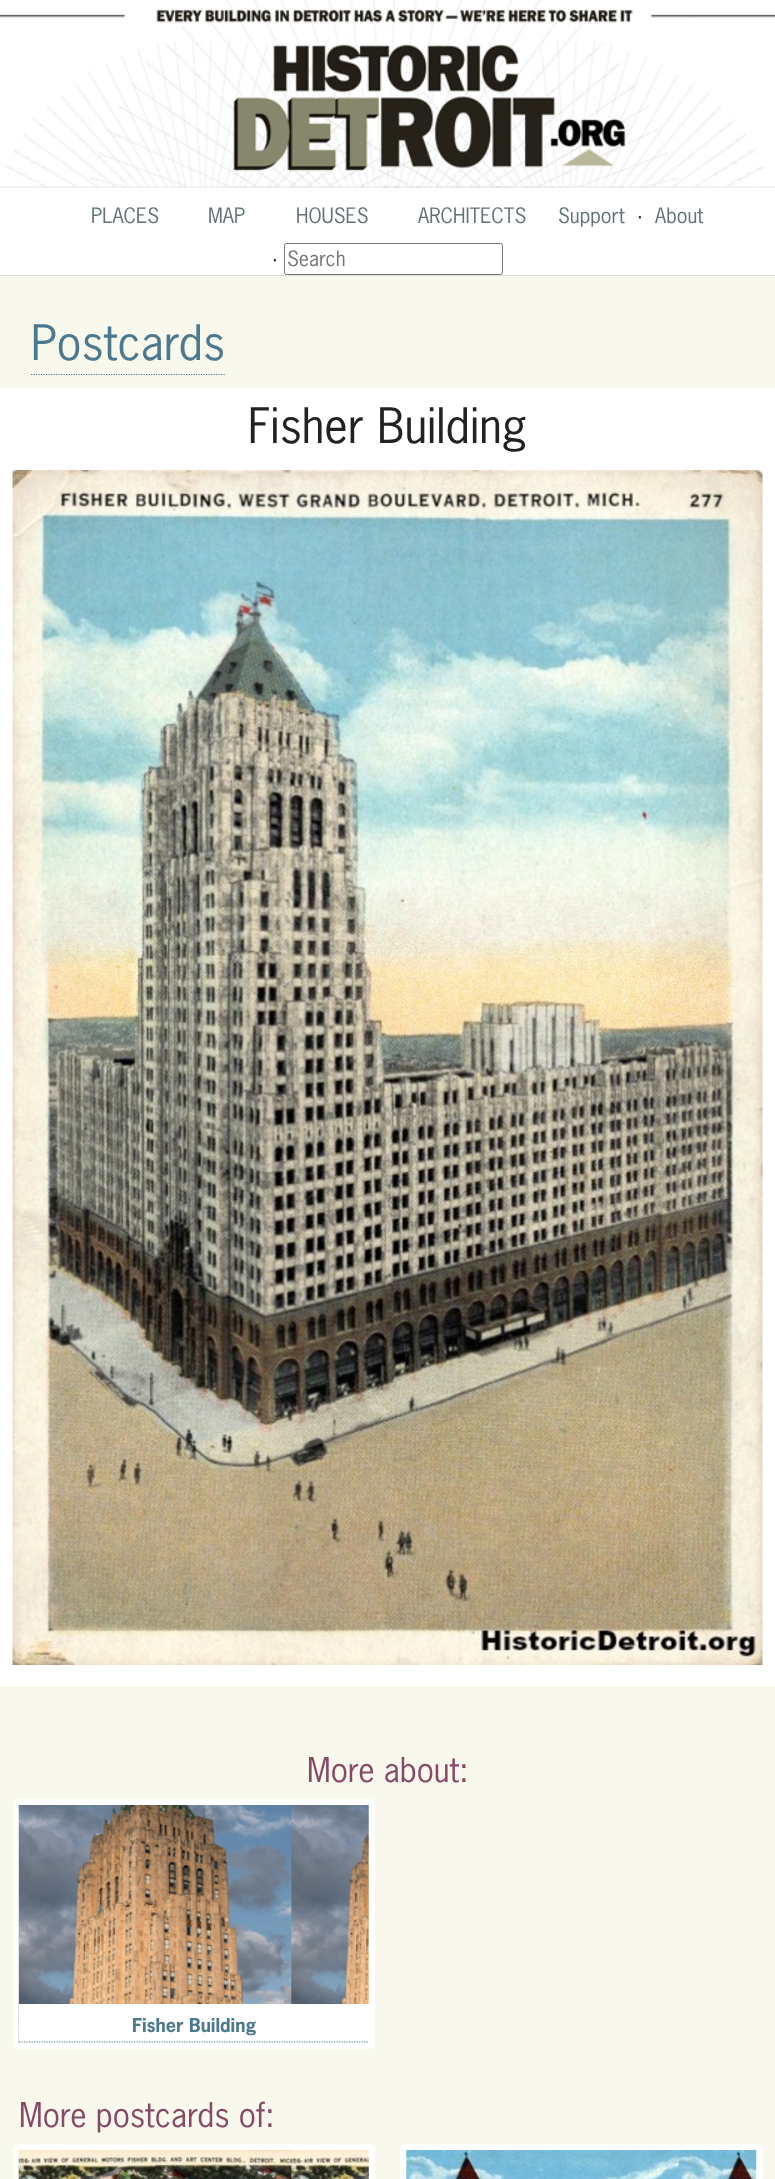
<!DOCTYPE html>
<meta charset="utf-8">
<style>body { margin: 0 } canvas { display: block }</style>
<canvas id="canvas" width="775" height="2179"></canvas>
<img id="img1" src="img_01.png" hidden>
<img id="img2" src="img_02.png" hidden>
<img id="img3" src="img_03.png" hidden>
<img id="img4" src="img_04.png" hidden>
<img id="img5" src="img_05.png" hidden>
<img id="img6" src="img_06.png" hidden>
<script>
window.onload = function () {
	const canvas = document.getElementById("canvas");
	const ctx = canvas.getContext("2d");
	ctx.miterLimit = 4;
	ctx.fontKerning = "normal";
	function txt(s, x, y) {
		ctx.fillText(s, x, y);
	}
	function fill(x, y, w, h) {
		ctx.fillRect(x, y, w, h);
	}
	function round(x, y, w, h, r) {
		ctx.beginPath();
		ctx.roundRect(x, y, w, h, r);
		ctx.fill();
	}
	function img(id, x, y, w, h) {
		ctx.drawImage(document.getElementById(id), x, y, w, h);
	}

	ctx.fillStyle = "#F9F8EC";
	fill(0, 0, 775, 2179);
	img("img1", 0, 187, 775, 1);
	img("img2", 0, 0, 775, 188);
	ctx.fillStyle = "#FFFFFF";
	fill(0, 188, 775, 87);
	ctx.fillStyle = "#DDDDDD";
	fill(0, 275, 775, 1);
	ctx.beginPath();
	ctx.roundRect(284.5, 243.5, 218, 31, 2);
	ctx.strokeStyle = "#767676";
	ctx.stroke();
	ctx.beginPath();
	ctx.moveTo(31, 374.5);
	ctx.lineTo(225, 374.5);
	ctx.strokeStyle = "#4D798F";
	ctx.lineWidth = 1.2;
	ctx.setLineDash([1.25, 1.25]);
	ctx.stroke();
	ctx.fillStyle = "#FFFFFF";
	fill(0, 388, 775, 1298);
	img("img3", 12, 470, 751, 1195);
	round(13, 1799, 362, 250, 5);
	img("img4", 18, 1805, 351, 238);
	fill(19, 2004, 350, 39);
	ctx.beginPath();
	ctx.moveTo(19, 2042);
	ctx.lineTo(369, 2042);
	ctx.stroke();
	round(13, 2144, 362, 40, 5);
	img("img5", 18, 2150, 351, 29);
	round(400, 2144, 363, 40, 5);
	img("img6", 406, 2150, 351, 29);
	ctx.font = "20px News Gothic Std";
	ctx.fillStyle = "#637179";
	txt("PLACES", 91, 223);
	txt("MAP", 208, 223);
	txt("About", 655, 223);
	ctx.fillStyle = "#222222";
	txt("·", 272, 266);
	ctx.fillStyle = "#637179";
	txt("HOUSES", 296, 223);
	txt("ARCHITECTS", 418, 223);
	txt("Support", 558, 223);
	ctx.fillStyle = "#222222";
	txt("·", 637, 223);
	ctx.fillStyle = "#757575";
	txt("Search", 287, 266);
	ctx.font = "46px News Gothic Std";
	ctx.fillStyle = "#4D798F";
	txt("Postcards", 31, 360);
	ctx.fillStyle = "#222222";
	txt("Fisher Building", 248, 443);
	ctx.font = "32px News Gothic Std";
	ctx.fillStyle = "#874A66";
	txt("More about:", 307, 1782);
	ctx.font = "bold 18px News Gothic Std";
	ctx.fillStyle = "#4D798F";
	txt("Fisher Building", 132, 2032);
	ctx.font = "32px News Gothic Std";
	ctx.fillStyle = "#874A66";
	txt("More postcards of:", 19, 2127);
};
</script>
